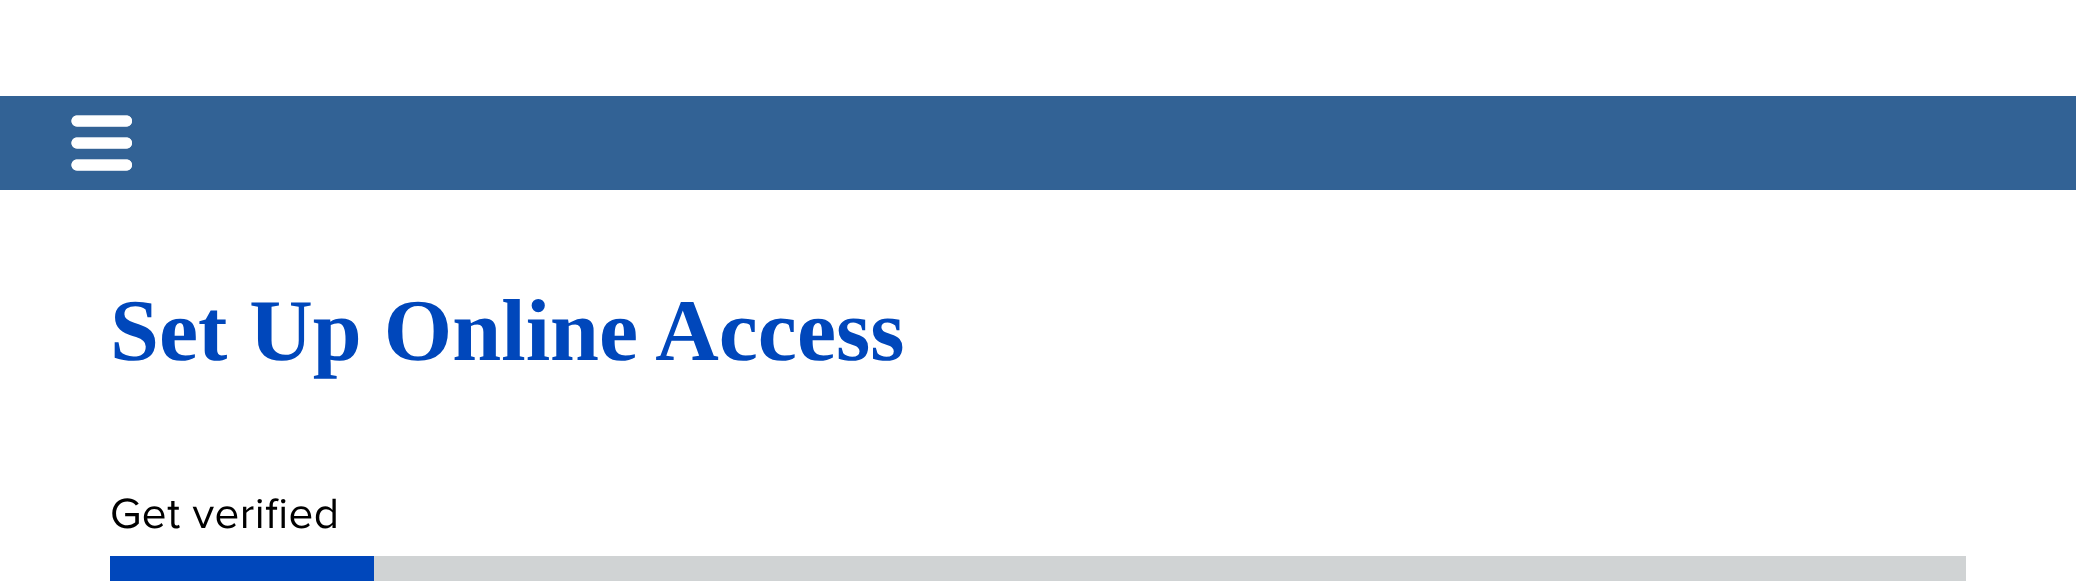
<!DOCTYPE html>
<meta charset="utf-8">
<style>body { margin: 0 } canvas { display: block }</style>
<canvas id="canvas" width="2076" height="581"></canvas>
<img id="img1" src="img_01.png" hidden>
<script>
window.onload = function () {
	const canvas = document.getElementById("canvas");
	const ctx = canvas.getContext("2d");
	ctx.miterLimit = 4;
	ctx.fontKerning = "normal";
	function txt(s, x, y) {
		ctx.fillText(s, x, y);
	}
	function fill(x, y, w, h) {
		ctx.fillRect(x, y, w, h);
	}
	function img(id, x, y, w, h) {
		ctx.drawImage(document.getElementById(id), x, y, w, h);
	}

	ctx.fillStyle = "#FFFFFF";
	fill(0, 0, 2076, 581);
	ctx.fillStyle = "#326295";
	fill(0, 96, 2076, 94);
	img("img1", 71, 115, 61, 56);
	ctx.fillStyle = "#0047BB";
	fill(110, 556, 264, 25);
	ctx.fillStyle = "#D0D3D4";
	fill(374, 556, 1592, 25);
	ctx.font = "bold 88px Liberation Serif";
	ctx.fillStyle = "#0047BB";
	txt("Set Up Online Access", 110, 360);
	ctx.letterSpacing = "0.5px";
	ctx.font = "44px Proxima Nova";
	ctx.fillStyle = "#000000";
	txt("Get verified", 110, 528);
};
</script>
